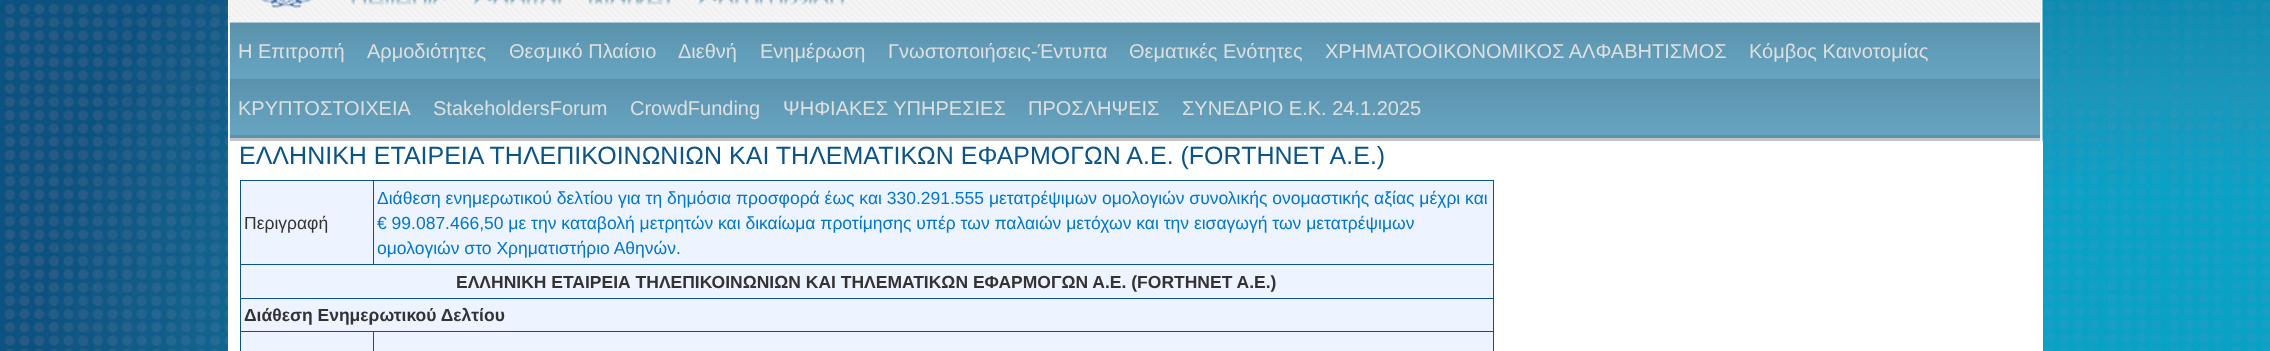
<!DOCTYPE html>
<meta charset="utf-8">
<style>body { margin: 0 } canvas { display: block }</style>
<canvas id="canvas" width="2270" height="351"></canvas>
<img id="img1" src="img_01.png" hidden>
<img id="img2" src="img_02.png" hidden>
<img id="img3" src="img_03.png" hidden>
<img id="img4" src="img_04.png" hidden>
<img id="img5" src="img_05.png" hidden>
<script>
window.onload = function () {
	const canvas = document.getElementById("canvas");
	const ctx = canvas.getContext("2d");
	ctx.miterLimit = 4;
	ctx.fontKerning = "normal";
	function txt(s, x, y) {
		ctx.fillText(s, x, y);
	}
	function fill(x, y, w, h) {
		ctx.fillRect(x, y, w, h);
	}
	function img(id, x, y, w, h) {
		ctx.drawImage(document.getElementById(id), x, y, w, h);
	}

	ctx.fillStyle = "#FFFFFF";
	fill(0, 0, 2270, 351);
	img("img1", 0, 0, 228, 351);
	img("img2", 228, 0, 1814, 140);
	img("img3", 261, 0, 583, 8);
	img("img4", 230, 22, 1810, 116);
	ctx.fillStyle = "#C3C3C3";
	fill(230, 138, 1810, 3);
	img("img5", 2042, 0, 228, 351);
	ctx.fillStyle = "#FFFFFF";
	fill(2042, 141, 1, 210);
	ctx.fillStyle = "#EDF3FF";
	fill(241, 181, 132, 83);
	ctx.fillStyle = "#0A5487";
	fill(373, 180, 1121, 1);
	fill(240, 264, 1254, 1);
	fill(373, 180, 1, 85);
	fill(240, 180, 134, 1);
	fill(240, 298, 1254, 1);
	ctx.fillStyle = "#EDF3FF";
	fill(241, 299, 1252, 34);
	ctx.fillStyle = "#0A5487";
	fill(373, 331, 1121, 1);
	fill(373, 331, 1, 20);
	fill(240, 331, 134, 1);
	fill(240, 331, 1, 20);
	fill(240, 298, 1, 35);
	fill(240, 264, 1, 35);
	fill(240, 180, 1, 85);
	ctx.fillStyle = "#EDF3FF";
	fill(374, 181, 1119, 83);
	ctx.fillStyle = "#0A5487";
	fill(1493, 331, 1, 20);
	fill(1493, 298, 1, 35);
	fill(1493, 264, 1, 35);
	fill(1493, 180, 1, 85);
	ctx.fillStyle = "#EDF3FF";
	fill(241, 265, 1252, 33);
	fill(241, 333, 132, 18);
	fill(374, 333, 1119, 18);
	ctx.font = "20px Liberation Sans";
	ctx.fillStyle = "#DFDFDF";
	txt("H Επιτροπή", 238, 58);
	txt("Αρμοδιότητες", 367, 58);
	txt("Θεσμικό Πλαίσιο", 509, 58);
	txt("Διεθνή", 678, 58);
	txt("Ενημέρωση", 760, 58);
	txt("Γνωστοποιήσεις-Έντυπα", 888, 58);
	txt("Θεματικές Ενότητες", 1129, 58);
	txt("ΧΡΗΜΑΤΟΟΙΚΟΝΟΜΙΚΟΣ ΑΛΦΑΒΗΤΙΣΜΟΣ", 1325, 58);
	txt("Κόμβος Καινοτομίας", 1749, 58);
	txt("ΚΡΥΠΤΟΣΤΟΙΧΕΙΑ", 238, 115);
	txt("StakeholdersForum", 433, 115);
	txt("CrowdFunding", 630, 115);
	txt("ΨΗΦΙΑΚΕΣ ΥΠΗΡΕΣΙΕΣ", 783, 115);
	txt("ΠΡΟΣΛΗΨΕΙΣ", 1028, 115);
	txt("ΣΥΝΕΔΡΙΟ Ε.Κ. 24.1.2025", 1182, 115);
	ctx.font = "25px Liberation Sans";
	ctx.fillStyle = "#0A5487";
	txt("EΛΛΗΝΙΚΗ ΕΤΑΙΡΕΙΑ ΤΗΛΕΠΙΚΟΙΝΩΝΙΩΝ ΚΑΙ ΤΗΛΕΜΑΤΙΚΩΝ ΕΦΑΡΜΟΓΩΝ Α.Ε. (FORTHNET A.E.)", 239, 164);
	ctx.font = "17.5px Liberation Sans";
	ctx.fillStyle = "#333333";
	txt("Περιγραφή", 244, 229);
	ctx.fillStyle = "#0077CC";
	txt("Διάθεση ενημερωτικού δελτίου για τη δημόσια προσφορά έως και 330.291.555 μετατρέψιμων ομολογιών συνολικής ονομαστικής αξίας μέχρι και", 377, 204);
	txt("€ 99.087.466,50 με την καταβολή μετρητών και δικαίωμα προτίμησης υπέρ των παλαιών μετόχων και την εισαγωγή των μετατρέψιμων", 377, 229);
	txt("ομολογιών στο Χρηματιστήριο Αθηνών.", 377, 254);
	ctx.font = "bold 17.5px Liberation Sans";
	ctx.fillStyle = "#333333";
	txt("EΛΛΗΝΙΚΗ ΕΤΑΙΡΕΙΑ ΤΗΛΕΠΙΚΟΙΝΩΝΙΩΝ ΚΑΙ ΤΗΛΕΜΑΤΙΚΩΝ ΕΦΑΡΜΟΓΩΝ Α.Ε. (FORTHNET A.E.)", 456, 288);
	txt("Διάθεση Ενημερωτικού Δελτίου", 244, 321);
};
</script>
